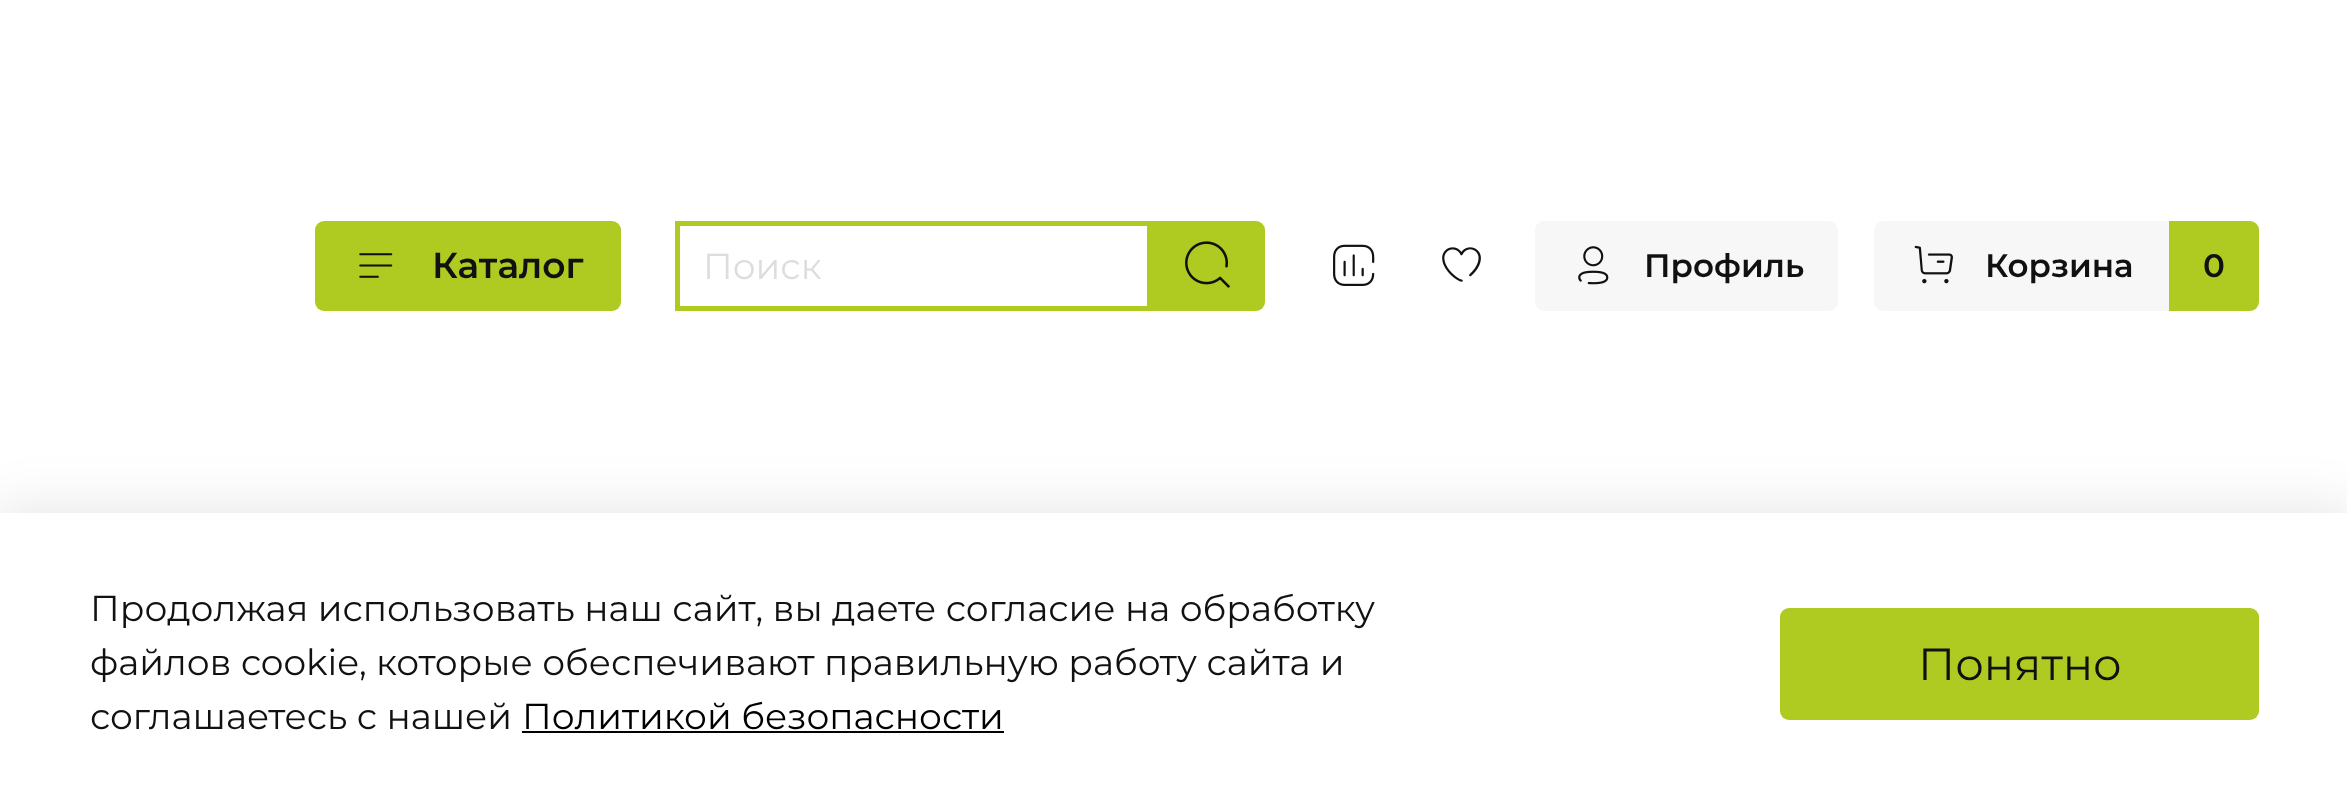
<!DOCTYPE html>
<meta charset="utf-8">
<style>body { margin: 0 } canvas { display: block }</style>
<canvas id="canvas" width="2347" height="790"></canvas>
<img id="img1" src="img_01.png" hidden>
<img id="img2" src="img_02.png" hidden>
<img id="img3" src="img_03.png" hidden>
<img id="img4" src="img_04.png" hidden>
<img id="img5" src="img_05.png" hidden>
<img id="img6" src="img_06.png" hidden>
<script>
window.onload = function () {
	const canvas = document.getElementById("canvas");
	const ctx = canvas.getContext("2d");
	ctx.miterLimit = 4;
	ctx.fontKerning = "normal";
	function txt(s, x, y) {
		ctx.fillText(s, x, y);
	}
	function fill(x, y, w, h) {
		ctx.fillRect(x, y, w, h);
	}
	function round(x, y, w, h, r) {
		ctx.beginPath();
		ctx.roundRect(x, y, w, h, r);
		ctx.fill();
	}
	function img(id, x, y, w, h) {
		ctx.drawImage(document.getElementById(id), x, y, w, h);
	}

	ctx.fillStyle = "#FFFFFF";
	fill(0, 0, 2347, 790);
	ctx.fillStyle = "#AFCB21";
	round(315, 221, 306, 90, 9);
	img("img1", 359, 253, 34, 25);
	ctx.strokeStyle = "#AFCB21";
	ctx.lineWidth = 5;
	ctx.strokeRect(677.5, 223.5, 472, 85);
	ctx.beginPath();
	ctx.roundRect(1152, 221, 113, 90, [0, 9, 9, 0]);
	ctx.fill();
	img("img2", 1185, 241, 45, 47);
	img("img3", 1333, 244, 42, 42);
	img("img4", 1442, 247, 39, 35);
	ctx.fillStyle = "#F7F7F7";
	round(1535, 221, 303, 90, 9);
	img("img5", 1578, 246, 31, 39);
	round(1874, 221, 385, 90, 9);
	img("img6", 1914, 245, 39, 39);
	ctx.fillStyle = "#AFCB21";
	ctx.beginPath();
	ctx.roundRect(2169, 221, 90, 90, [0, 9, 9, 0]);
	ctx.fill();
	ctx.fillStyle = "rgba(0, 0, 0, 0.09)";
	ctx.filter = "blur(26px)";
	ctx.beginPath();
	ctx.rect(-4, 506, 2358, 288);
	ctx.fill();
	ctx.filter = "none";
	ctx.fillStyle = "#FFFFFF";
	fill(0, 513, 2347, 277);
	ctx.fillStyle = "#000000";
	fill(522, 731, 482, 2);
	ctx.fillStyle = "#AFCB21";
	round(1780, 608, 479, 112, 9);
	ctx.font = "600 36px Montserrat";
	ctx.fillStyle = "#111111";
	txt("Каталог", 432, 278);
	ctx.font = "36px Montserrat";
	ctx.fillStyle = "#DDDDDD";
	txt("Поиск", 703, 279);
	ctx.font = "600 32.5px Montserrat";
	ctx.fillStyle = "#111111";
	txt("Профиль", 1644, 277);
	txt("Корзина", 1985, 277);
	txt("0", 2203, 277);
	ctx.font = "36px Montserrat";
	txt("Продолжая использовать наш сайт, вы даете согласие на обработку", 90, 621);
	txt("файлов cookie, которые обеспечивают правильную работу сайта и", 90, 675);
	txt("соглашаетесь с нашей", 90, 729);
	ctx.fillStyle = "#000000";
	txt("Политикой безопасности", 522, 729);
	ctx.font = "45px Montserrat";
	ctx.fillStyle = "#111111";
	txt("Понятно", 1918, 680);
};
</script>
